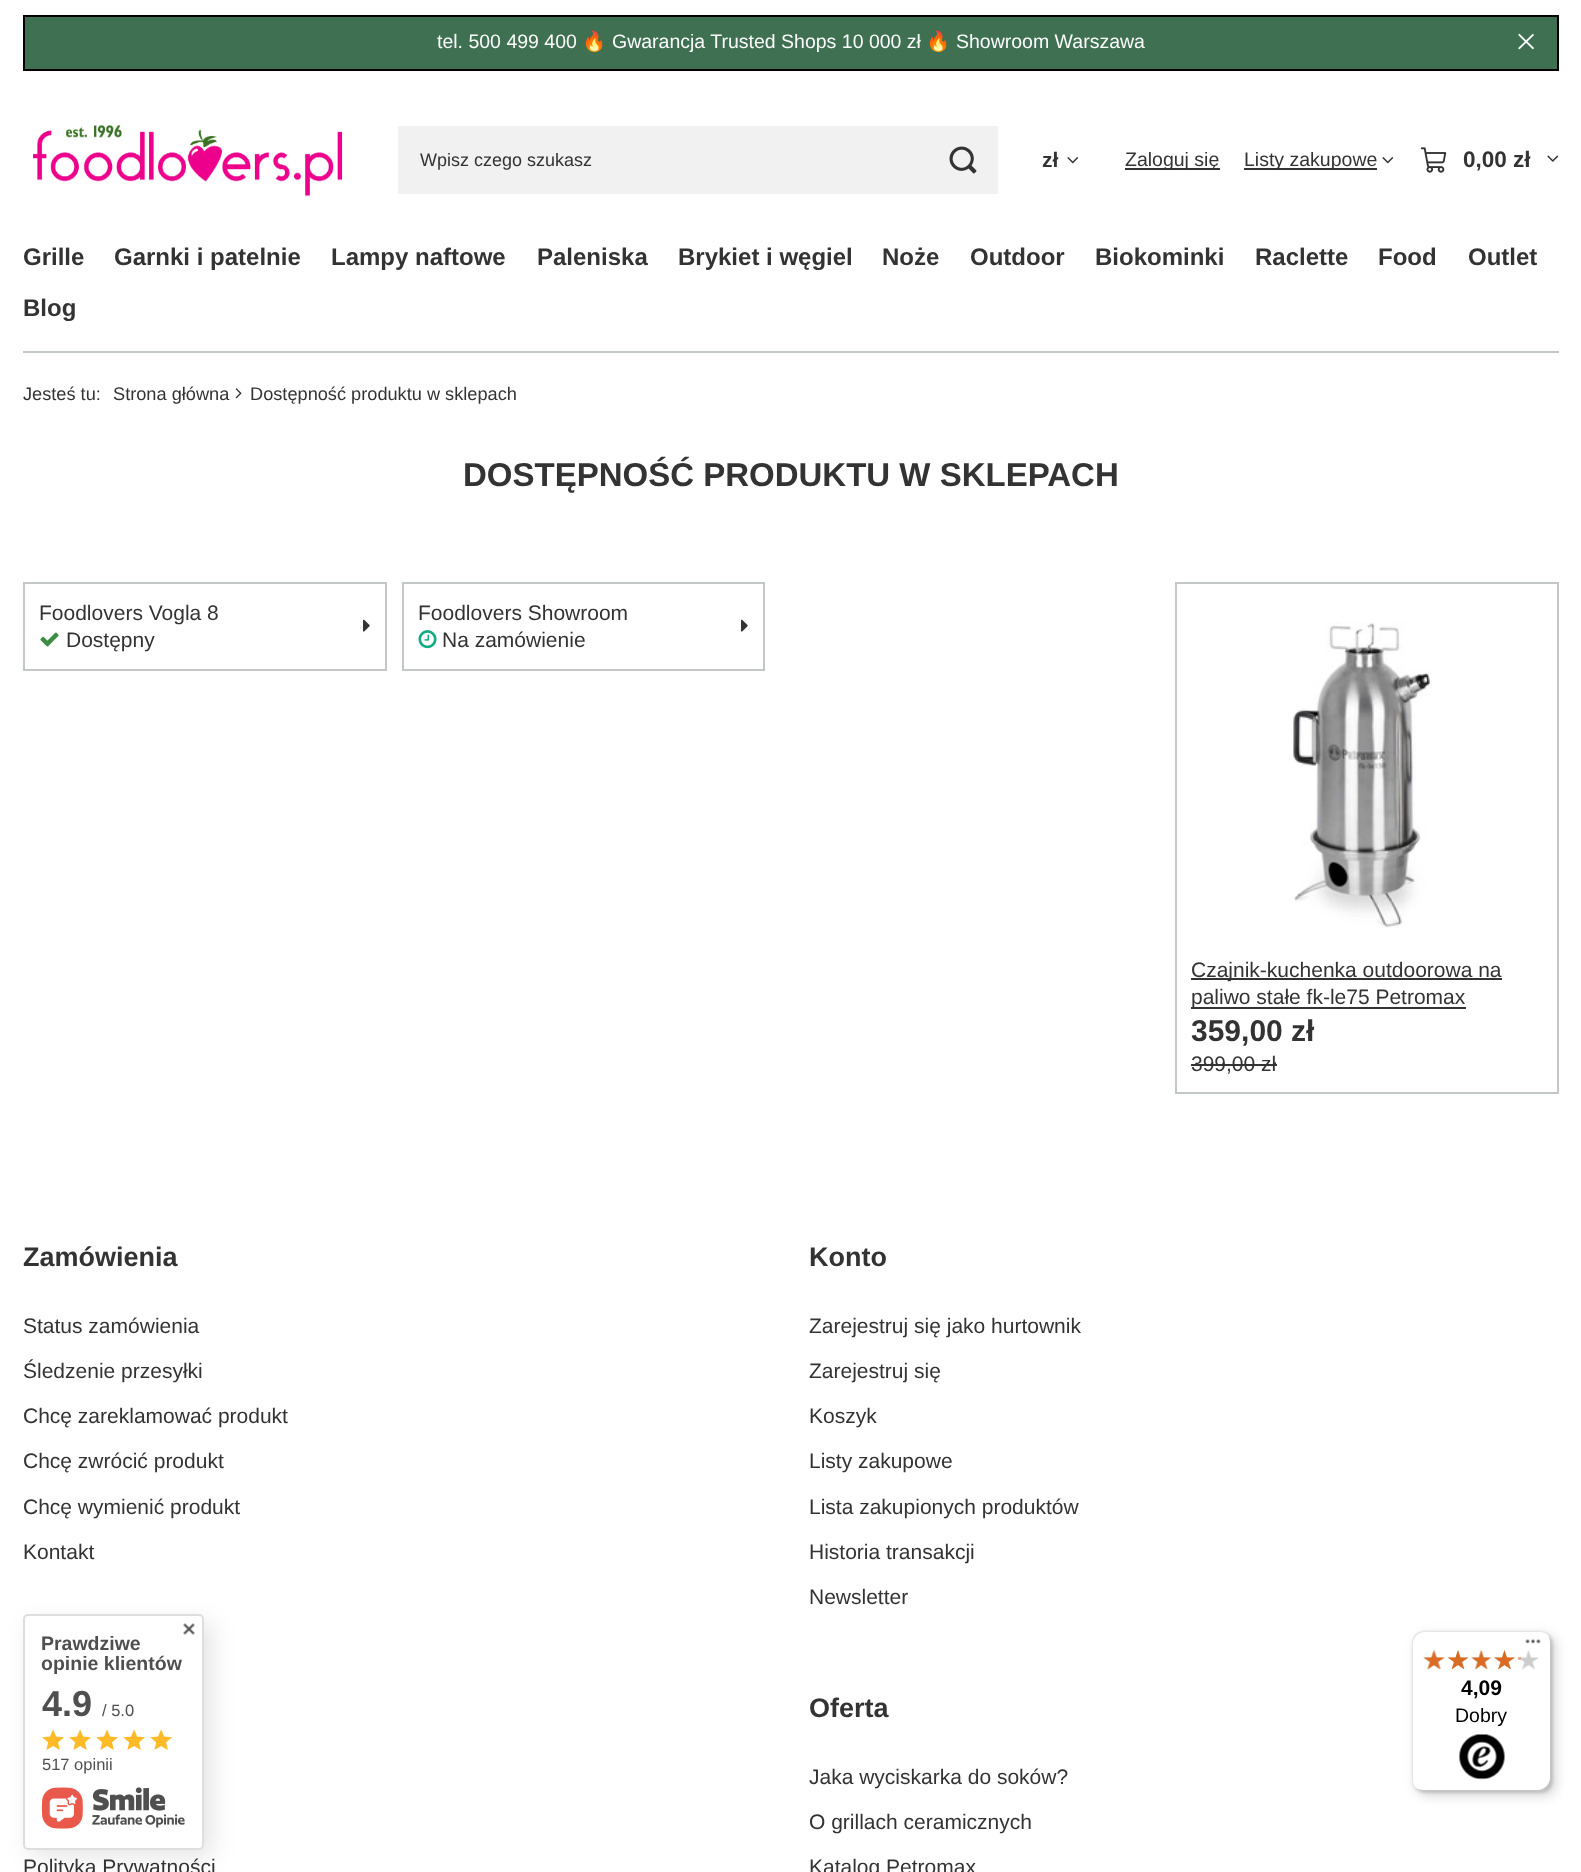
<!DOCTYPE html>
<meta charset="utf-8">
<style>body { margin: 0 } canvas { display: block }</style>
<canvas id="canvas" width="1581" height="1872"></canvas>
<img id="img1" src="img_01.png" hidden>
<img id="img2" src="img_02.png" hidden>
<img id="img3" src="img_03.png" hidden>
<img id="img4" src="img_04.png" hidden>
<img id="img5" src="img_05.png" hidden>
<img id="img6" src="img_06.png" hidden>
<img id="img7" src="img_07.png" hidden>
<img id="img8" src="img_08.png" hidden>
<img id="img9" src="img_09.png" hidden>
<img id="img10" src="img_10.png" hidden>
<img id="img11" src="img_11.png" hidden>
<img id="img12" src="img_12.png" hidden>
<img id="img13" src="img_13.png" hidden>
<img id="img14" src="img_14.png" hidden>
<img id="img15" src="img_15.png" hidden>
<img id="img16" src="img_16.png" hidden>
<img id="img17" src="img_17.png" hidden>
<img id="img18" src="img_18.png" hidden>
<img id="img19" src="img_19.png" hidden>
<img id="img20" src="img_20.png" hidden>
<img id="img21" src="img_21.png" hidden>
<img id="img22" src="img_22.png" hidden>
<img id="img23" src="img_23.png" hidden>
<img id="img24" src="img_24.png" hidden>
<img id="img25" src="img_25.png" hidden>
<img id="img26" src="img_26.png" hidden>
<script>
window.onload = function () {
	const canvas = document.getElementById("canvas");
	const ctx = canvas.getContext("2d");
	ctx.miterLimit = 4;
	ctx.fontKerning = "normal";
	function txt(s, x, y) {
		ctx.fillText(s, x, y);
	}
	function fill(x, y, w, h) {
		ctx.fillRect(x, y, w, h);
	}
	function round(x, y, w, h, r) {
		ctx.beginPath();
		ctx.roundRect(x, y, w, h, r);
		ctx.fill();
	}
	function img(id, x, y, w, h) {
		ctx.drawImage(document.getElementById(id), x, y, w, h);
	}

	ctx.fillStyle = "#FFFFFF";
	fill(0, 0, 1581, 1872);
	ctx.fillStyle = "#3F7052";
	ctx.beginPath();
	ctx.rect(24, 16, 1534, 54);
	ctx.fill();
	ctx.strokeStyle = "#000000";
	ctx.lineWidth = 2;
	ctx.stroke();
	img("img1", 1518, 33, 16, 17);
	img("img2", 33, 125, 310, 72);
	ctx.fillStyle = "#F1F1F1";
	fill(398, 126, 600, 68);
	img("img3", 949, 146, 28, 28);
	img("img4", 1067, 157, 12, 7);
	ctx.fillStyle = "#333333";
	fill(1125, 168, 95, 2);
	fill(1244, 168, 133, 2);
	img("img5", 1382, 157, 12, 7);
	img("img6", 1420, 147, 27, 26);
	img("img7", 1547, 155, 12, 7);
	ctx.fillStyle = "#C4C7C8";
	fill(23, 351, 1536, 2);
	img("img8", 235, 388, 7, 11);
	ctx.strokeStyle = "#C4C7C8";
	ctx.strokeRect(24, 583, 362, 87);
	img("img9", 363, 619, 7, 13);
	img("img10", 40, 632, 19, 15);
	ctx.strokeRect(403, 583, 361, 87);
	img("img9", 741, 619, 7, 13);
	img("img11", 418, 630, 19, 19);
	ctx.strokeRect(1176, 583, 382, 510);
	img("img12", 1293, 622, 139, 306);
	ctx.fillStyle = "#333333";
	fill(1191, 978, 311, 2);
	fill(1191, 1007, 275, 2);
	fill(1191, 1064, 86, 2);
	ctx.fillStyle = "rgba(0, 0, 0, 0.1)";
	ctx.filter = "blur(11px)";
	ctx.beginPath();
	ctx.roundRect(30, 1622, 182, 235, 5);
	ctx.fill();
	ctx.filter = "none";
	ctx.fillStyle = "#FFFFFF";
	ctx.beginPath();
	ctx.roundRect(24, 1615, 179, 234, 4);
	ctx.fill();
	ctx.strokeStyle = "#DEDEDE";
	ctx.stroke();
	img("img13", 183, 1623, 12, 12);
	img("img14", 42, 1729, 22, 21);
	img("img14", 69, 1729, 22, 21);
	img("img14", 96, 1729, 22, 21);
	img("img14", 123, 1729, 22, 21);
	img("img14", 150, 1729, 22, 21);
	img("img15", 41, 1787, 144, 42);
	ctx.fillStyle = "rgba(0, 0, 0, 0.15)";
	ctx.filter = "blur(6px)";
	ctx.beginPath();
	ctx.roundRect(1416, 1635, 140, 161, 12);
	ctx.fill();
	ctx.filter = "none";
	ctx.filter = "blur(1.5px)";
	ctx.beginPath();
	ctx.roundRect(1413, 1632, 140, 161, 12);
	ctx.fill();
	ctx.filter = "none";
	ctx.fillStyle = "#FFFFFF";
	round(1412, 1631, 139, 160, 12);
	ctx.fillStyle = "#E5E5E5";
	ctx.beginPath();
	ctx.moveTo(1425, 1632);
	ctx.lineTo(1540, 1632);
	ctx.bezierCurveTo(1543, 1632, 1545, 1633, 1547, 1634);
	ctx.bezierCurveTo(1545, 1632, 1542, 1631, 1539, 1631);
	ctx.lineTo(1424, 1631);
	ctx.bezierCurveTo(1417, 1631, 1412, 1636, 1412, 1643);
	ctx.lineTo(1412, 1779);
	ctx.bezierCurveTo(1412, 1782, 1413, 1785, 1415, 1787);
	ctx.bezierCurveTo(1414, 1785, 1413, 1783, 1413, 1780);
	ctx.lineTo(1413, 1644);
	ctx.bezierCurveTo(1413, 1637, 1418, 1632, 1425, 1632);
	ctx.closePath();
	ctx.fill();
	ctx.fillStyle = "rgba(0, 0, 0, 0.2)";
	ctx.beginPath();
	ctx.moveTo(1418, 1789);
	ctx.bezierCurveTo(1419, 1790, 1422, 1791, 1424, 1791);
	ctx.lineTo(1539, 1791);
	ctx.bezierCurveTo(1546, 1791, 1551, 1786, 1551, 1779);
	ctx.lineTo(1551, 1643);
	ctx.bezierCurveTo(1551, 1641, 1550, 1638, 1549, 1637);
	ctx.lineTo(1550, 1641);
	ctx.lineTo(1550, 1778);
	ctx.bezierCurveTo(1550, 1784, 1544, 1790, 1538, 1790);
	ctx.lineTo(1422, 1790);
	ctx.closePath();
	ctx.fill();
	ctx.fillStyle = "rgba(50, 50, 50, 0.2)";
	ctx.beginPath();
	ctx.moveTo(1416, 1788);
	ctx.bezierCurveTo(1418, 1790, 1421, 1791, 1424, 1791);
	ctx.lineTo(1539, 1791);
	ctx.bezierCurveTo(1546, 1791, 1551, 1786, 1551, 1779);
	ctx.lineTo(1551, 1643);
	ctx.bezierCurveTo(1551, 1640, 1550, 1637, 1548, 1635);
	ctx.bezierCurveTo(1549, 1637, 1550, 1639, 1550, 1642);
	ctx.lineTo(1550, 1778);
	ctx.bezierCurveTo(1550, 1785, 1545, 1790, 1538, 1790);
	ctx.lineTo(1423, 1790);
	ctx.bezierCurveTo(1420, 1790, 1418, 1789, 1416, 1788);
	ctx.closePath();
	ctx.fill();
	ctx.fillStyle = "rgba(255, 255, 255, 0.3)";
	ctx.beginPath();
	ctx.moveTo(1416, 1788);
	ctx.bezierCurveTo(1418, 1790, 1421, 1791, 1424, 1791);
	ctx.lineTo(1539, 1791);
	ctx.bezierCurveTo(1546, 1791, 1551, 1786, 1551, 1779);
	ctx.lineTo(1551, 1643);
	ctx.bezierCurveTo(1551, 1640, 1550, 1637, 1548, 1635);
	ctx.bezierCurveTo(1549, 1637, 1550, 1639, 1550, 1642);
	ctx.lineTo(1550, 1778);
	ctx.bezierCurveTo(1550, 1785, 1545, 1790, 1538, 1790);
	ctx.lineTo(1423, 1790);
	ctx.bezierCurveTo(1420, 1790, 1418, 1789, 1416, 1788);
	ctx.closePath();
	ctx.fill();
	img("img16", 1525, 1639, 16, 5);
	img("img17", 1423, 1650, 22, 20);
	img("img18", 1448, 1650, 20, 19);
	img("img19", 1471, 1650, 20, 20);
	img("img20", 1494, 1650, 21, 19);
	img("img21", 1518, 1650, 21, 20);
	img("img22", 1423, 1650, 22, 19);
	img("img23", 1448, 1650, 20, 20);
	img("img24", 1471, 1650, 20, 19);
	img("img25", 1494, 1650, 21, 20);
	ctx.fillStyle = "rgba(219, 106, 32, 0.47)";
	fill(1518, 1657, 3, 3);
	img("img26", 1459, 1734, 46, 46);
	ctx.font = "19.5px Liberation Sans";
	ctx.fillStyle = "#FCFCFC";
	txt("tel. 500 499 400", 437, 48);
	ctx.font = "19.5px Noto Color Emoji";
	txt("🔥", 582, 48);
	ctx.font = "19.5px Liberation Sans";
	txt("Gwarancja Trusted Shops 10 000 zł", 612, 48);
	ctx.font = "19.5px Noto Color Emoji";
	txt("🔥", 926, 48);
	ctx.font = "19.5px Liberation Sans";
	txt("Showroom Warszawa", 956, 48);
	ctx.font = "18px Liberation Sans";
	ctx.fillStyle = "#333333";
	txt("Wpisz czego szukasz", 420, 166);
	ctx.font = "bold 21px Liberation Sans";
	txt("zł", 1042, 167);
	ctx.font = "19.5px Liberation Sans";
	txt("Zaloguj się", 1125, 166);
	txt("Listy zakupowe", 1244, 166);
	ctx.font = "bold 22.5px Liberation Sans";
	txt("0,00 zł", 1463, 167);
	ctx.font = "bold 24px Liberation Sans";
	txt("Grille", 23, 265);
	txt("Garnki i patelnie", 114, 265);
	txt("Lampy naftowe", 331, 265);
	txt("Paleniska", 537, 265);
	txt("Brykiet i węgiel", 678, 265);
	txt("Noże", 882, 265);
	txt("Outdoor", 970, 265);
	txt("Biokominki", 1095, 265);
	txt("Raclette", 1255, 265);
	txt("Food", 1378, 265);
	txt("Outlet", 1468, 265);
	txt("Blog", 23, 316);
	ctx.font = "18.2px Liberation Sans";
	txt("Jesteś tu:", 23, 400);
	txt("Strona główna", 113, 400);
	txt("Dostępność produktu w sklepach", 250, 400);
	ctx.font = "bold 33px Liberation Sans";
	txt("DOSTĘPNOŚĆ PRODUKTU W SKLEPACH", 463, 486);
	ctx.font = "21px Liberation Sans";
	txt("Foodlovers Vogla 8", 39, 620);
	txt("Dostępny", 66, 647);
	txt("Foodlovers Showroom", 418, 620);
	txt("Na zamówienie", 442, 647);
	txt("Czajnik-kuchenka outdoorowa na", 1191, 977);
	txt("paliwo stałe fk-le75 Petromax", 1191, 1004);
	ctx.font = "bold 30px Liberation Sans";
	txt("359,00 zł", 1191, 1041);
	ctx.font = "21px Liberation Sans";
	txt("399,00 zł", 1191, 1071);
	ctx.font = "bold 27px Liberation Sans";
	txt("Zamówienia", 23, 1266);
	ctx.font = "21px Liberation Sans";
	txt("Status zamówienia", 23, 1333);
	txt("Śledzenie przesyłki", 23, 1378);
	txt("Chcę zareklamować produkt", 23, 1423);
	txt("Chcę zwrócić produkt", 23, 1468);
	txt("Chcę wymienić produkt", 23, 1514);
	txt("Kontakt", 23, 1559);
	ctx.font = "bold 27px Liberation Sans";
	txt("Konto", 809, 1266);
	ctx.font = "21px Liberation Sans";
	txt("Zarejestruj się jako hurtownik", 809, 1333);
	txt("Zarejestruj się", 809, 1378);
	txt("Koszyk", 809, 1423);
	txt("Listy zakupowe", 809, 1468);
	txt("Lista zakupionych produktów", 809, 1514);
	txt("Historia transakcji", 809, 1559);
	txt("Newsletter", 809, 1604);
	txt("Polityka Prywatności", 23, 1874);
	ctx.font = "bold 27px Liberation Sans";
	txt("Oferta", 809, 1717);
	ctx.font = "21px Liberation Sans";
	txt("Jaka wyciskarka do soków?", 809, 1784);
	txt("O grillach ceramicznych", 809, 1829);
	txt("Katalog Petromax", 809, 1874);
	ctx.font = "bold 19.5px Liberation Sans";
	ctx.fillStyle = "#4F4F4F";
	txt("Prawdziwe", 41, 1650);
	txt("opinie klientów", 41, 1670);
	ctx.font = "bold 36px Liberation Sans";
	txt("4.9", 42, 1716);
	ctx.font = "16.5px Liberation Sans";
	txt("/ 5.0", 102, 1716);
	txt("517 opinii", 42, 1770);
	ctx.font = "bold 21px Liberation Sans";
	ctx.fillStyle = "#000000";
	txt("4,09", 1461, 1695);
	ctx.font = "19.5px Liberation Sans";
	txt("Dobry", 1455, 1722);
};
</script>
